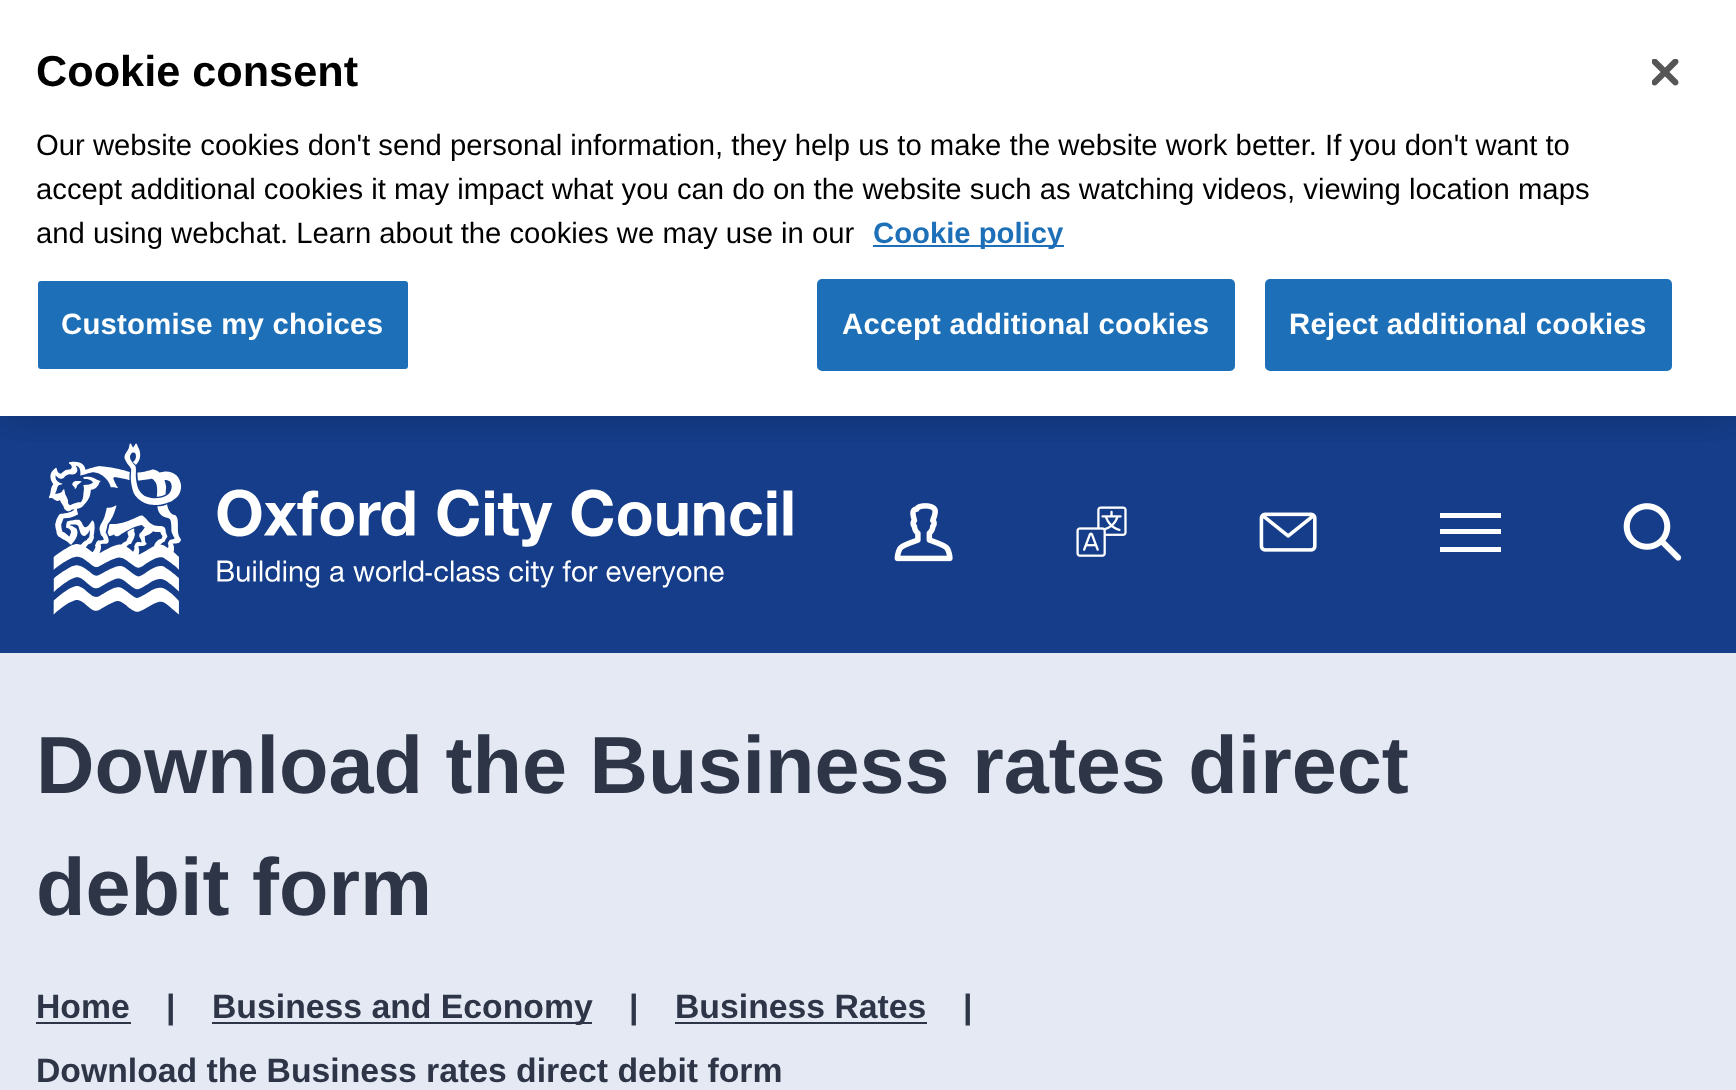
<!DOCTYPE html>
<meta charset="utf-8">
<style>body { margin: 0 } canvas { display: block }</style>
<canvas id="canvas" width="1736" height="1090"></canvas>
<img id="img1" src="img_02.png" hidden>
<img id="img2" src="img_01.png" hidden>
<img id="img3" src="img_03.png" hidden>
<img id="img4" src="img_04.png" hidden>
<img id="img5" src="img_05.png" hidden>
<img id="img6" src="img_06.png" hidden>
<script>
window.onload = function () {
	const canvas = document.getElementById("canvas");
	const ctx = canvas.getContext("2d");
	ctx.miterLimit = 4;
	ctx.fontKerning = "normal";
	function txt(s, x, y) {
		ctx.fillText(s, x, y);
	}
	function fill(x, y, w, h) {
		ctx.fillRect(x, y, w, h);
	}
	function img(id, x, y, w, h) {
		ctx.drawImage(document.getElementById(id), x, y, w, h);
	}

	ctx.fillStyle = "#FFFFFF";
	fill(0, 0, 1736, 1090);
	ctx.fillStyle = "#153D8A";
	fill(0, 416, 1736, 237);
	img("img1", 48, 443, 745, 172);
	ctx.save();
	ctx.beginPath();
	ctx.rect(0, 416, 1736, 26);
	ctx.clip();
	ctx.fillStyle = "rgba(0, 0, 0, 0.2)";
	ctx.filter = "blur(20px)";
	ctx.beginPath();
	ctx.rect(0, 0, 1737, 416);
	ctx.fill();
	ctx.filter = "none";
	ctx.restore();
	ctx.fillStyle = "#1D70B8";
	fill(873, 245, 191, 2);
	ctx.beginPath();
	ctx.roundRect(37, 280, 372, 90, 4);
	ctx.fill();
	ctx.strokeStyle = "#FFFFFF";
	ctx.lineWidth = 2;
	ctx.stroke();
	ctx.beginPath();
	ctx.roundRect(818, 280, 416, 90, 4);
	ctx.fill();
	ctx.strokeStyle = "#1D70B8";
	ctx.stroke();
	ctx.beginPath();
	ctx.roundRect(1266, 280, 405, 90, 4);
	ctx.fill();
	ctx.stroke();
	img("img2", 1652, 59, 27, 27);
	img("img3", 894, 503, 59, 59);
	img("img4", 1076, 506, 51, 51);
	img("img5", 1259, 512, 58, 40);
	ctx.fillStyle = "#FFFFFF";
	fill(1440, 513, 61, 5);
	fill(1440, 529, 61, 5);
	fill(1440, 547, 61, 5);
	img("img6", 1623, 503, 59, 58);
	ctx.fillStyle = "#E4E9F4";
	fill(0, 653, 1736, 437);
	ctx.fillStyle = "#2D3547";
	fill(36, 1022, 95, 2);
	fill(212, 1022, 380, 2);
	fill(675, 1022, 252, 2);
	ctx.font = "bold 43.25px Liberation Sans";
	ctx.fillStyle = "#000000";
	txt("Cookie consent", 36, 86);
	ctx.font = "29.27px Liberation Sans";
	txt("Our website cookies don't send personal information, they help us to make the website work better. If you don't want to", 36, 155);
	txt("accept additional cookies it may impact what you can do on the website such as watching videos, viewing location maps", 36, 199);
	txt("and using webchat. Learn about the cookies we may use in our", 36, 243);
	ctx.font = "bold 29.27px Liberation Sans";
	ctx.fillStyle = "#1D70B8";
	txt("Cookie policy", 873, 243);
	ctx.letterSpacing = "0.25px";
	ctx.fillStyle = "#FFFFFF";
	txt("Customise my choices", 61, 334);
	txt("Accept additional cookies", 842, 334);
	txt("Reject additional cookies", 1289, 334);
	ctx.letterSpacing = "0px";
	ctx.font = "bold 81px Liberation Sans";
	ctx.fillStyle = "#2D3547";
	txt("Download the Business rates direct", 36, 793);
	txt("debit form", 36, 915);
	ctx.font = "bold 33.75px Liberation Sans";
	txt("Home", 36, 1018);
	txt("|", 166, 1018);
	txt("Business and Economy", 212, 1018);
	txt("|", 629, 1018);
	txt("Business Rates", 675, 1018);
	txt("|", 963, 1018);
	txt("Download the Business rates direct debit form", 36, 1082);
};
</script>
